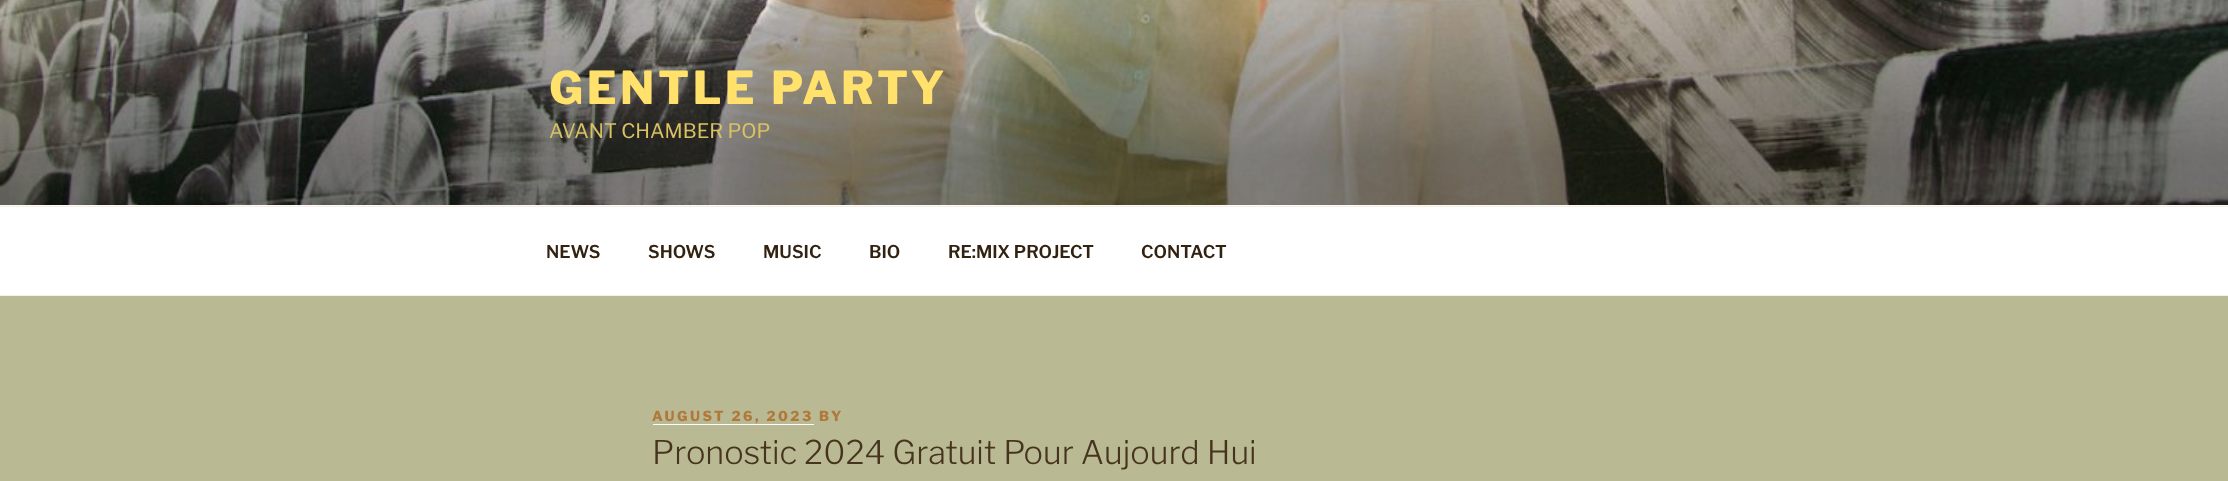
<!DOCTYPE html>
<meta charset="utf-8">
<style>body { margin: 0 } canvas { display: block }</style>
<canvas id="canvas" width="2228" height="481"></canvas>
<img id="img1" src="img_01.png" hidden>
<script>
window.onload = function () {
	const canvas = document.getElementById("canvas");
	const ctx = canvas.getContext("2d");
	ctx.miterLimit = 4;
	ctx.fontKerning = "normal";
	function txt(s, x, y) {
		ctx.fillText(s, x, y);
	}
	function fill(x, y, w, h) {
		ctx.fillRect(x, y, w, h);
	}
	function img(id, x, y, w, h) {
		ctx.drawImage(document.getElementById(id), x, y, w, h);
	}

	ctx.fillStyle = "#B9BA94";
	fill(0, 0, 2228, 481);
	ctx.fillStyle = "#FCFAF7";
	fill(0, 205, 2228, 1);
	img("img1", 0, 0, 2228, 205);
	ctx.fillStyle = "#FFFFFF";
	fill(0, 207, 2228, 88);
	ctx.fillStyle = "#F6EEE4";
	fill(0, 206, 2228, 1);
	fill(0, 295, 2228, 1);
	ctx.fillStyle = "#FFFFFF";
	fill(653, 424, 161, 1);
	ctx.letterSpacing = "3.6px";
	ctx.font = "100 45px Libre Franklin";
	ctx.fillStyle = "#FFE16B";
	txt("GENTLE PARTY", 549, 104);
	ctx.letterSpacing = "0px";
	ctx.font = "100 20px 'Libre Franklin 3'";
	ctx.fillStyle = "#DAC263";
	txt("AVANT CHAMBER POP", 549, 138);
	ctx.font = "100 17.5px 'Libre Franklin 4'";
	ctx.fillStyle = "#322211";
	txt("NEWS", 546, 258);
	txt("SHOWS", 648, 258);
	txt("MUSIC", 763, 258);
	txt("BIO", 869, 258);
	txt("RE:MIX PROJECT", 948, 258);
	txt("CONTACT", 1141, 258);
	ctx.letterSpacing = "2.5px";
	ctx.font = "100 13.75px Libre Franklin";
	ctx.fillStyle = "#B0793B";
	txt("AUGUST 26, 2023 BY", 652, 421);
	ctx.letterSpacing = "0px";
	ctx.font = "100 32.5px 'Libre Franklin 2'";
	ctx.fillStyle = "#47341F";
	txt("Pronostic 2024 Gratuit Pour Aujourd Hui", 652, 464);
};
</script>
